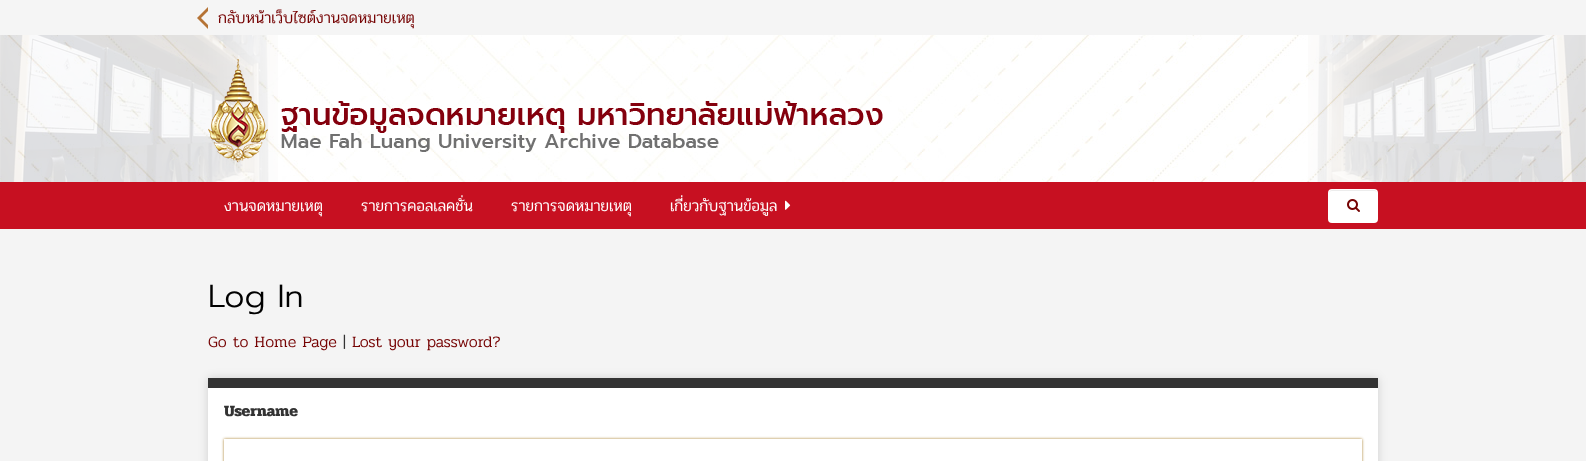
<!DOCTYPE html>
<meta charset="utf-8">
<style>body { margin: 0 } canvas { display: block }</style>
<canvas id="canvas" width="1586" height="461"></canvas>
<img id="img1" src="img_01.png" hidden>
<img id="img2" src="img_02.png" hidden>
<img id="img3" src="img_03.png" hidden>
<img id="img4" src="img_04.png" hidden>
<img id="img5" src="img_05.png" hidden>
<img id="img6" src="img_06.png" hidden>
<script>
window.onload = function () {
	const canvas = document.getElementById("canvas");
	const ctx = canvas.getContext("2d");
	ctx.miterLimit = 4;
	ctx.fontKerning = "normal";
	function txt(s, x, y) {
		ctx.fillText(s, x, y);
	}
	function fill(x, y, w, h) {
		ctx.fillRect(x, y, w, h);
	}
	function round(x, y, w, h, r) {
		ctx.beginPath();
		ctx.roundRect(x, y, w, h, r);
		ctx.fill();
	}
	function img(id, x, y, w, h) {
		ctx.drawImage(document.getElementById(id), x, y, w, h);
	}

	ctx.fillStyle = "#FFFFFF";
	fill(0, 0, 1586, 461);
	img("img1", 0, 35, 1586, 147);
	img("img2", 0, 35, 278, 147);
	img("img3", 1308, 35, 278, 147);
	ctx.fillStyle = "#F5F5F5";
	fill(0, 0, 1586, 35);
	ctx.fillStyle = "#B57335";
	ctx.beginPath();
	ctx.moveTo(208, 7);
	ctx.lineTo(208, 29);
	ctx.lineTo(197, 18);
	ctx.closePath();
	ctx.fill();
	ctx.fillStyle = "#F5F5F5";
	ctx.beginPath();
	ctx.moveTo(208, 11);
	ctx.lineTo(208, 25);
	ctx.lineTo(201, 18);
	ctx.closePath();
	ctx.fill();
	img("img4", 208, 59, 675, 104);
	ctx.fillStyle = "#C71021";
	fill(0, 182, 1586, 47);
	img("img5", 785, 200, 6, 10);
	ctx.fillStyle = "#FFFFFF";
	round(1328, 189, 50, 34, 4);
	ctx.fillStyle = "#ECECEC";
	ctx.beginPath();
	ctx.moveTo(1332, 191);
	ctx.lineTo(1374, 191);
	ctx.bezierCurveTo(1376, 191, 1377, 192, 1377, 194);
	ctx.bezierCurveTo(1377, 188, 1371, 190, 1367, 190);
	ctx.lineTo(1339, 190);
	ctx.bezierCurveTo(1335, 190, 1329, 188, 1329, 194);
	ctx.bezierCurveTo(1329, 192, 1330, 191, 1332, 191);
	ctx.closePath();
	ctx.fill();
	img("img6", 1347, 199, 13, 13);
	ctx.fillStyle = "#F4F4F4";
	fill(0, 229, 1586, 232);
	ctx.fillStyle = "rgba(0, 0, 0, 0.15)";
	ctx.filter = "blur(5px)";
	ctx.beginPath();
	ctx.rect(208, 378, 1170, 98);
	ctx.fill();
	ctx.filter = "none";
	ctx.fillStyle = "#FFFFFF";
	fill(208, 388, 1170, 73);
	ctx.fillStyle = "#333333";
	fill(208, 378, 1170, 10);
	ctx.save();
	ctx.beginPath();
	ctx.moveTo(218, 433);
	ctx.lineTo(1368, 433);
	ctx.lineTo(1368, 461);
	ctx.lineTo(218, 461);
	ctx.closePath();
	ctx.moveTo(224, 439);
	ctx.lineTo(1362, 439);
	ctx.lineTo(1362, 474);
	ctx.lineTo(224, 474);
	ctx.closePath();
	ctx.clip("evenodd");
	ctx.fillStyle = "#A77E2C";
	ctx.filter = "blur(1.5px)";
	ctx.beginPath();
	ctx.rect(224, 439, 1138, 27);
	ctx.fill();
	ctx.filter = "none";
	ctx.restore();
	ctx.font = "300 16px Pridi";
	ctx.fillStyle = "#750202";
	txt("กลับหน้าเว็บไซต์งานจดหมายเหตุ", 218, 23);
	ctx.fillStyle = "#FFFFFF";
	txt("งานจดหมายเหตุ", 224, 211);
	txt("รายการคอลเลคชั่น", 361, 211);
	txt("รายการจดหมายเหตุ", 511, 211);
	txt("เกี่ยวกับฐานข้อมูล", 670, 211);
	ctx.font = "300 32px Prompt";
	ctx.fillStyle = "#000000";
	txt("Log In", 208, 307);
	ctx.font = "300 16px Pridi";
	ctx.fillStyle = "#750202";
	txt("Go to Home Page", 208, 347);
	ctx.fillStyle = "#333333";
	txt("|", 343, 347);
	ctx.fillStyle = "#750202";
	txt("Lost your password?", 352, 347);
	ctx.font = "bold 16px Pridi";
	ctx.fillStyle = "#333333";
	txt("Username", 224, 416);
};
</script>
